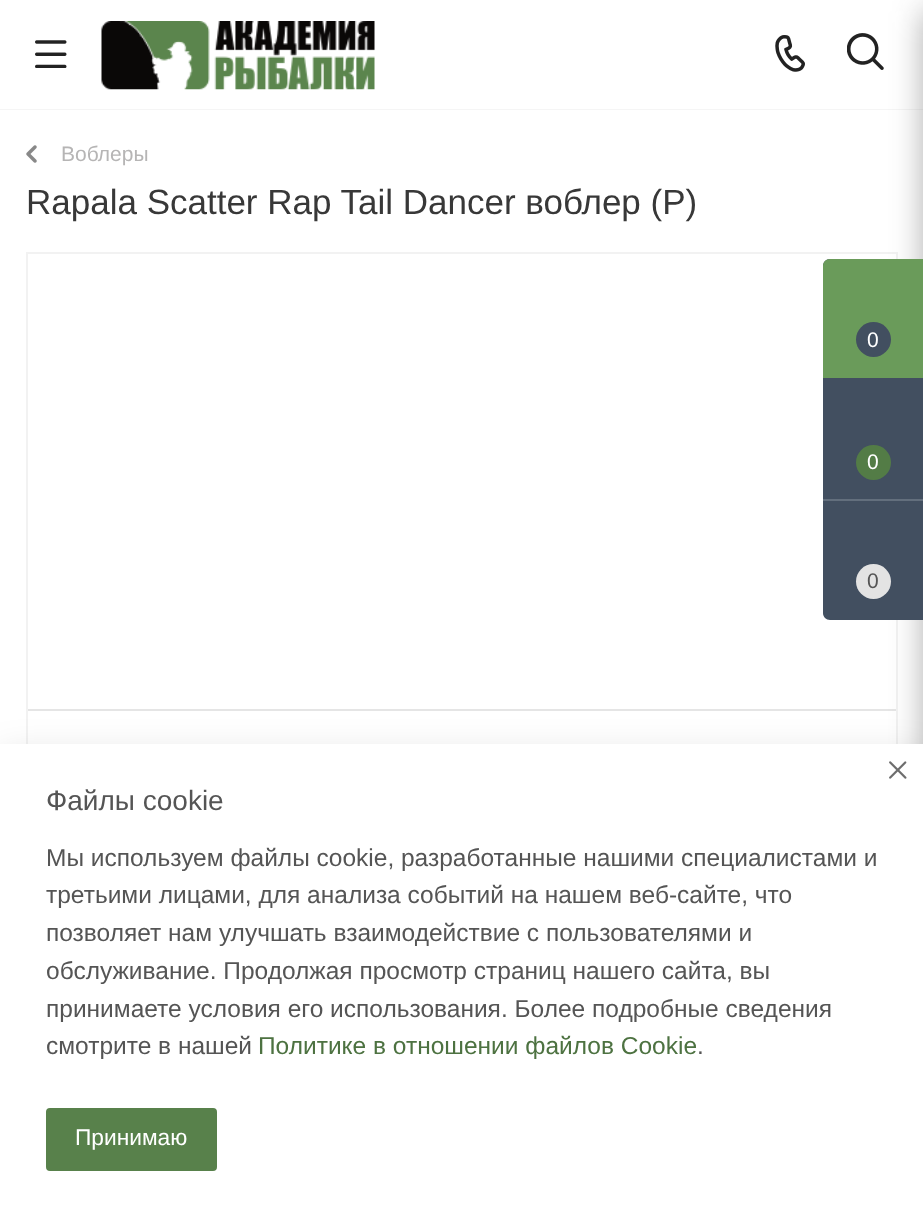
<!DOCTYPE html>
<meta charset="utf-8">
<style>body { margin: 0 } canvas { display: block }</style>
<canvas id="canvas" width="923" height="1214"></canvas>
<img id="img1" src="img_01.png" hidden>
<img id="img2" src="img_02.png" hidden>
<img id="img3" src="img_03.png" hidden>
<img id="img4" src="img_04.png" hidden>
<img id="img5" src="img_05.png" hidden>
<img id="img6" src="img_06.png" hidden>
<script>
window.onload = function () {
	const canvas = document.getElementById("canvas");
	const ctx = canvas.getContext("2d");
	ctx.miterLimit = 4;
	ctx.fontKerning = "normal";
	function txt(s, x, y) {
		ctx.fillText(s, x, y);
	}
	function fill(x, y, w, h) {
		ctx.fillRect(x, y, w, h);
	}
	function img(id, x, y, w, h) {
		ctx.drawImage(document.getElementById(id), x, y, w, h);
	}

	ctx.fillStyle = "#FFFFFF";
	fill(0, 0, 923, 1214);
	ctx.fillStyle = "#F5F5F5";
	fill(0, 109, 923, 1);
	img("img1", 35, 40, 32, 28);
	img("img2", 101, 21, 274, 69);
	img("img3", 775, 35, 30, 37);
	img("img4", 847, 33, 37, 37);
	img("img5", 26, 145, 11, 18);
	ctx.strokeStyle = "#F2F2F2";
	ctx.lineWidth = 2;
	ctx.strokeRect(27, 253, 870, 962);
	ctx.fillStyle = "#E5E5E5";
	fill(28, 709, 868, 2);
	ctx.fillStyle = "rgba(44, 44, 44, 0.4)";
	ctx.filter = "blur(16px)";
	ctx.beginPath();
	ctx.roundRect(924, 11, 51, 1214, 4);
	ctx.fill();
	ctx.filter = "none";
	ctx.fillStyle = "#424F60";
	ctx.beginPath();
	ctx.moveTo(830, 259);
	ctx.lineTo(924, 259);
	ctx.lineTo(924, 620);
	ctx.lineTo(830, 620);
	ctx.bezierCurveTo(826, 620, 823, 617, 823, 613);
	ctx.lineTo(823, 266);
	ctx.bezierCurveTo(823, 262, 826, 259, 830, 259);
	ctx.closePath();
	ctx.fill();
	ctx.fillStyle = "#6A9B5A";
	ctx.beginPath();
	ctx.moveTo(830, 259);
	ctx.lineTo(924, 259);
	ctx.lineTo(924, 378);
	ctx.lineTo(823, 378);
	ctx.lineTo(823, 266);
	ctx.bezierCurveTo(823, 262, 826, 259, 830, 259);
	ctx.closePath();
	ctx.fill();
	ctx.fillStyle = "#424F60";
	ctx.beginPath();
	ctx.arc(873.5, 339.5, 17.5, 0, Math.PI * 2);
	ctx.fill();
	ctx.fillStyle = "#537C46";
	ctx.beginPath();
	ctx.arc(873.5, 462.5, 17.5, 0, Math.PI * 2);
	ctx.fill();
	ctx.fillStyle = "#636F7D";
	fill(823, 499, 100, 2);
	ctx.fillStyle = "#E3E3E3";
	ctx.beginPath();
	ctx.arc(873.5, 581.5, 17.5, 0, Math.PI * 2);
	ctx.fill();
	ctx.fillStyle = "rgba(0, 0, 0, 0.12)";
	ctx.filter = "blur(17.5px)";
	ctx.beginPath();
	ctx.rect(0, 753, 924, 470);
	ctx.fill();
	ctx.filter = "none";
	ctx.fillStyle = "#FFFFFF";
	fill(0, 744, 923, 470);
	img("img6", 889, 761, 18, 18);
	ctx.fillStyle = "#58814B";
	ctx.beginPath();
	ctx.roundRect(47, 1109, 169, 61, 3);
	ctx.fill();
	ctx.strokeStyle = "#58814B";
	ctx.stroke();
	ctx.font = "21px Liberation Sans";
	ctx.fillStyle = "#B6B5B5";
	txt("Воблеры", 61, 161);
	ctx.font = "35px Liberation Sans";
	ctx.fillStyle = "#383838";
	txt("Rapala Scatter Rap Tail Dancer воблер (P)", 26, 214);
	ctx.font = "21px Liberation Sans";
	ctx.fillStyle = "#FFFFFF";
	txt("0", 867, 347);
	txt("0", 867, 469);
	ctx.fillStyle = "#555555";
	txt("0", 867, 588);
	ctx.font = "28px Liberation Sans";
	txt("Файлы cookie", 46, 810);
	ctx.font = "24.5px Liberation Sans";
	txt("Мы используем файлы cookie, разработанные нашими специалистами и", 46, 866);
	txt("третьими лицами, для анализа событий на нашем веб-сайте, что", 46, 903);
	txt("позволяет нам улучшать взаимодействие с пользователями и", 46, 941);
	txt("обслуживание. Продолжая просмотр страниц нашего сайта, вы", 46, 979);
	txt("принимаете условия его использования. Более подробные сведения", 46, 1017);
	txt("смотрите в нашей", 46, 1054);
	ctx.fillStyle = "#4D7241";
	txt("Политике в отношении файлов Cookie", 258, 1054);
	ctx.fillStyle = "#555555";
	txt(".", 697, 1054);
	ctx.font = "22.75px Liberation Sans";
	ctx.fillStyle = "#FFFFFF";
	txt("Принимаю", 75, 1145);
};
</script>
